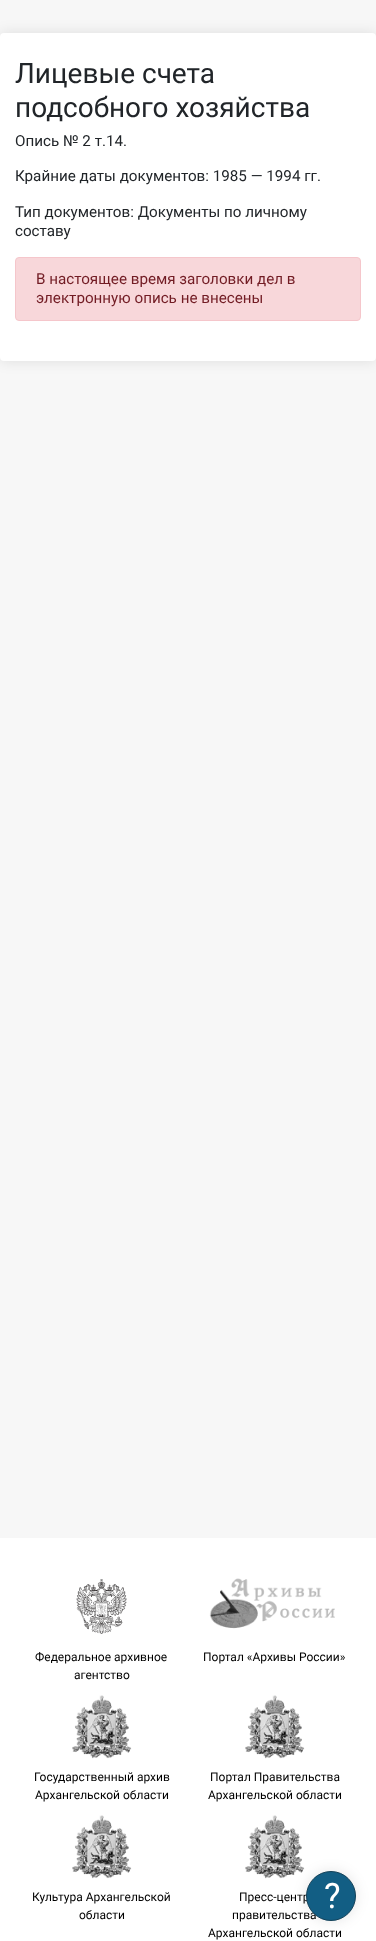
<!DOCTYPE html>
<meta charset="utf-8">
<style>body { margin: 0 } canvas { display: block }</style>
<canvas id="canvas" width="376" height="1941"></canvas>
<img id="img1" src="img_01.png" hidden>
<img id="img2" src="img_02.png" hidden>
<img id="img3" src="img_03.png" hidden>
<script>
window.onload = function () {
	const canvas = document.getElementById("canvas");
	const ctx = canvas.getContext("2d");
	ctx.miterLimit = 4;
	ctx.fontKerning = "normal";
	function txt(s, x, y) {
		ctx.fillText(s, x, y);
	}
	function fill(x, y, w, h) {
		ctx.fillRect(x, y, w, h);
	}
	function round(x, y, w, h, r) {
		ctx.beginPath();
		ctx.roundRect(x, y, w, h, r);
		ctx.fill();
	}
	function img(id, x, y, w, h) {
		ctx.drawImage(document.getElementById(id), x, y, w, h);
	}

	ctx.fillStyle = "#FFFFFF";
	fill(0, 0, 376, 1941);
	ctx.fillStyle = "#F7F7F7";
	fill(0, 0, 376, 1538);
	ctx.fillStyle = "rgba(0, 0, 0, 0.1)";
	ctx.filter = "blur(7px)";
	ctx.beginPath();
	ctx.roundRect(0, 33, 376, 328, 4);
	ctx.fill();
	ctx.filter = "none";
	ctx.fillStyle = "#FFFFFF";
	round(0, 33, 376, 328, 4);
	ctx.fillStyle = "#F8D7DA";
	ctx.beginPath();
	ctx.roundRect(15.5, 257.5, 345, 63, 3.5);
	ctx.fill();
	ctx.strokeStyle = "#F5C6CB";
	ctx.stroke();
	img("img1", 76, 1579, 51, 55);
	img("img2", 209, 1578, 126, 51);
	img("img3", 72, 1695, 60, 64);
	img("img3", 245, 1695, 60, 64);
	img("img3", 72, 1815, 60, 64);
	img("img3", 245, 1815, 60, 64);
	ctx.fillStyle = "rgba(0, 0, 0, 0.1)";
	ctx.filter = "blur(7px)";
	ctx.beginPath();
	ctx.roundRect(306, 1871, 50, 50, 25);
	ctx.fill();
	ctx.filter = "none";
	ctx.font = "28px Roboto";
	ctx.fillStyle = "#212529";
	txt("Лицевые счета", 15, 83);
	txt("подсобного хозяйства", 15, 117);
	ctx.font = "15.2px Roboto";
	txt("Опись № 2 т.14.", 15, 146);
	txt("Крайние даты документов: 1985 — 1994 гг.", 15, 181);
	txt("Тип документов: Документы по личному", 15, 217);
	txt("составу", 15, 236);
	ctx.fillStyle = "#721C24";
	txt("В настоящее время заголовки дел в", 36, 284);
	txt("электронную опись не внесены", 36, 303);
	ctx.font = "12px Roboto";
	ctx.fillStyle = "#000000";
	txt("Федеральное архивное", 35, 1661);
	txt("агентство", 74, 1679);
	txt("Портал «Архивы России»", 203, 1661);
	txt("Государственный архив", 34, 1781);
	txt("Архангельской области", 35, 1799);
	txt("Портал Правительства", 210, 1781);
	txt("Архангельской области", 208, 1799);
	txt("Культура Архангельской", 32, 1901);
	txt("области", 79, 1919);
	txt("Пресс-центр", 239, 1901);
	txt("правительства", 232, 1919);
	txt("Архангельской области", 208, 1937);
	ctx.fillStyle = "#125E84";
	ctx.beginPath();
	ctx.arc(331, 1896, 24.5, 0, Math.PI * 2);
	ctx.fill();
	ctx.strokeStyle = "#144259";
	ctx.stroke();
	ctx.font = "35px Roboto";
	ctx.fillStyle = "#FFFFFF";
	txt("?", 324, 1908);
};
</script>
